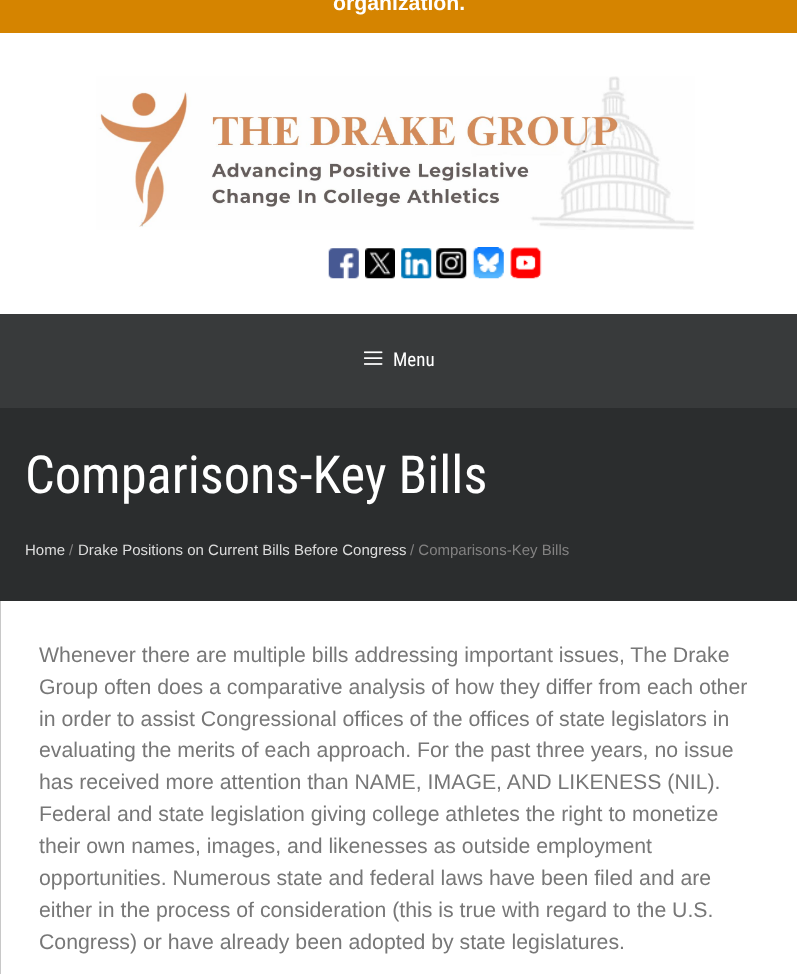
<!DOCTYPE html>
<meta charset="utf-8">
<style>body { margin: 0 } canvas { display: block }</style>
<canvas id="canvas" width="797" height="974"></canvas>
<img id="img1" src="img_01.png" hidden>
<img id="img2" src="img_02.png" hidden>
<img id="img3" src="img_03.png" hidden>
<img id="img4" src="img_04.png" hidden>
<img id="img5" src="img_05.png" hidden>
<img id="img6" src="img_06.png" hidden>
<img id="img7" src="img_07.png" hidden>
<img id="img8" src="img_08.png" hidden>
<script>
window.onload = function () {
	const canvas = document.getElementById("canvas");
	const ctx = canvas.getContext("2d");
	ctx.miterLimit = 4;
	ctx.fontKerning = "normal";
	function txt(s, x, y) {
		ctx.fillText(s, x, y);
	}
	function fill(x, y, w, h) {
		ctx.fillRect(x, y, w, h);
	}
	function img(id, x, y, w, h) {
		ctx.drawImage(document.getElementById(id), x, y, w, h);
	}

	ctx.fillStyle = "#FFFFFF";
	fill(0, 0, 797, 974);
	ctx.fillStyle = "#D58400";
	fill(0, 0, 797, 33);
	img("img1", 96, 76, 599, 154);
	img("img2", 328, 248, 31, 31);
	img("img3", 365, 248, 30, 31);
	img("img4", 401, 248, 31, 31);
	img("img5", 436, 248, 31, 31);
	img("img6", 472, 247, 32, 32);
	img("img7", 510, 247, 32, 32);
	ctx.fillStyle = "#383A3B";
	fill(0, 314, 797, 94);
	img("img8", 364, 351, 19, 14);
	ctx.fillStyle = "#2B2D2E";
	fill(0, 408, 797, 193);
	ctx.fillStyle = "#C8C8C8";
	fill(0, 601, 1, 373);
	ctx.font = "bold 21.25px Liberation Sans";
	ctx.fillStyle = "#FFFFFF";
	txt("organization.", 333, 10);
	ctx.font = "19px Roboto Condensed";
	txt("Menu", 393, 366);
	ctx.font = "52.5px Roboto Condensed";
	txt("Comparisons-Key Bills", 25, 493);
	ctx.font = "15px Liberation Sans";
	ctx.fillStyle = "#DDDDDD";
	txt("Home", 25, 555);
	ctx.fillStyle = "#838282";
	txt("/", 69, 555);
	ctx.fillStyle = "#DDDDDD";
	txt("Drake Positions on Current Bills Before Congress", 78, 555);
	ctx.fillStyle = "#838282";
	txt("/ Comparisons-Key Bills", 410, 555);
	ctx.font = "21.25px Liberation Sans";
	ctx.fillStyle = "#777777";
	txt("Whenever there are multiple bills addressing important issues, The Drake", 39, 662);
	txt("Group often does a comparative analysis of how they differ from each other", 39, 694);
	txt("in order to assist Congressional offices of the offices of state legislators in", 39, 726);
	txt("evaluating the merits of each approach. For the past three years, no issue", 39, 757);
	txt("has received more attention than NAME, IMAGE, AND LIKENESS (NIL).", 39, 789);
	txt("Federal and state legislation giving college athletes the right to monetize", 39, 821);
	txt("their own names, images, and likenesses as outside employment", 39, 853);
	txt("opportunities. Numerous state and federal laws have been filed and are", 39, 885);
	txt("either in the process of consideration (this is true with regard to the U.S.", 39, 917);
	txt("Congress) or have already been adopted by state legislatures.", 39, 949);
};
</script>
